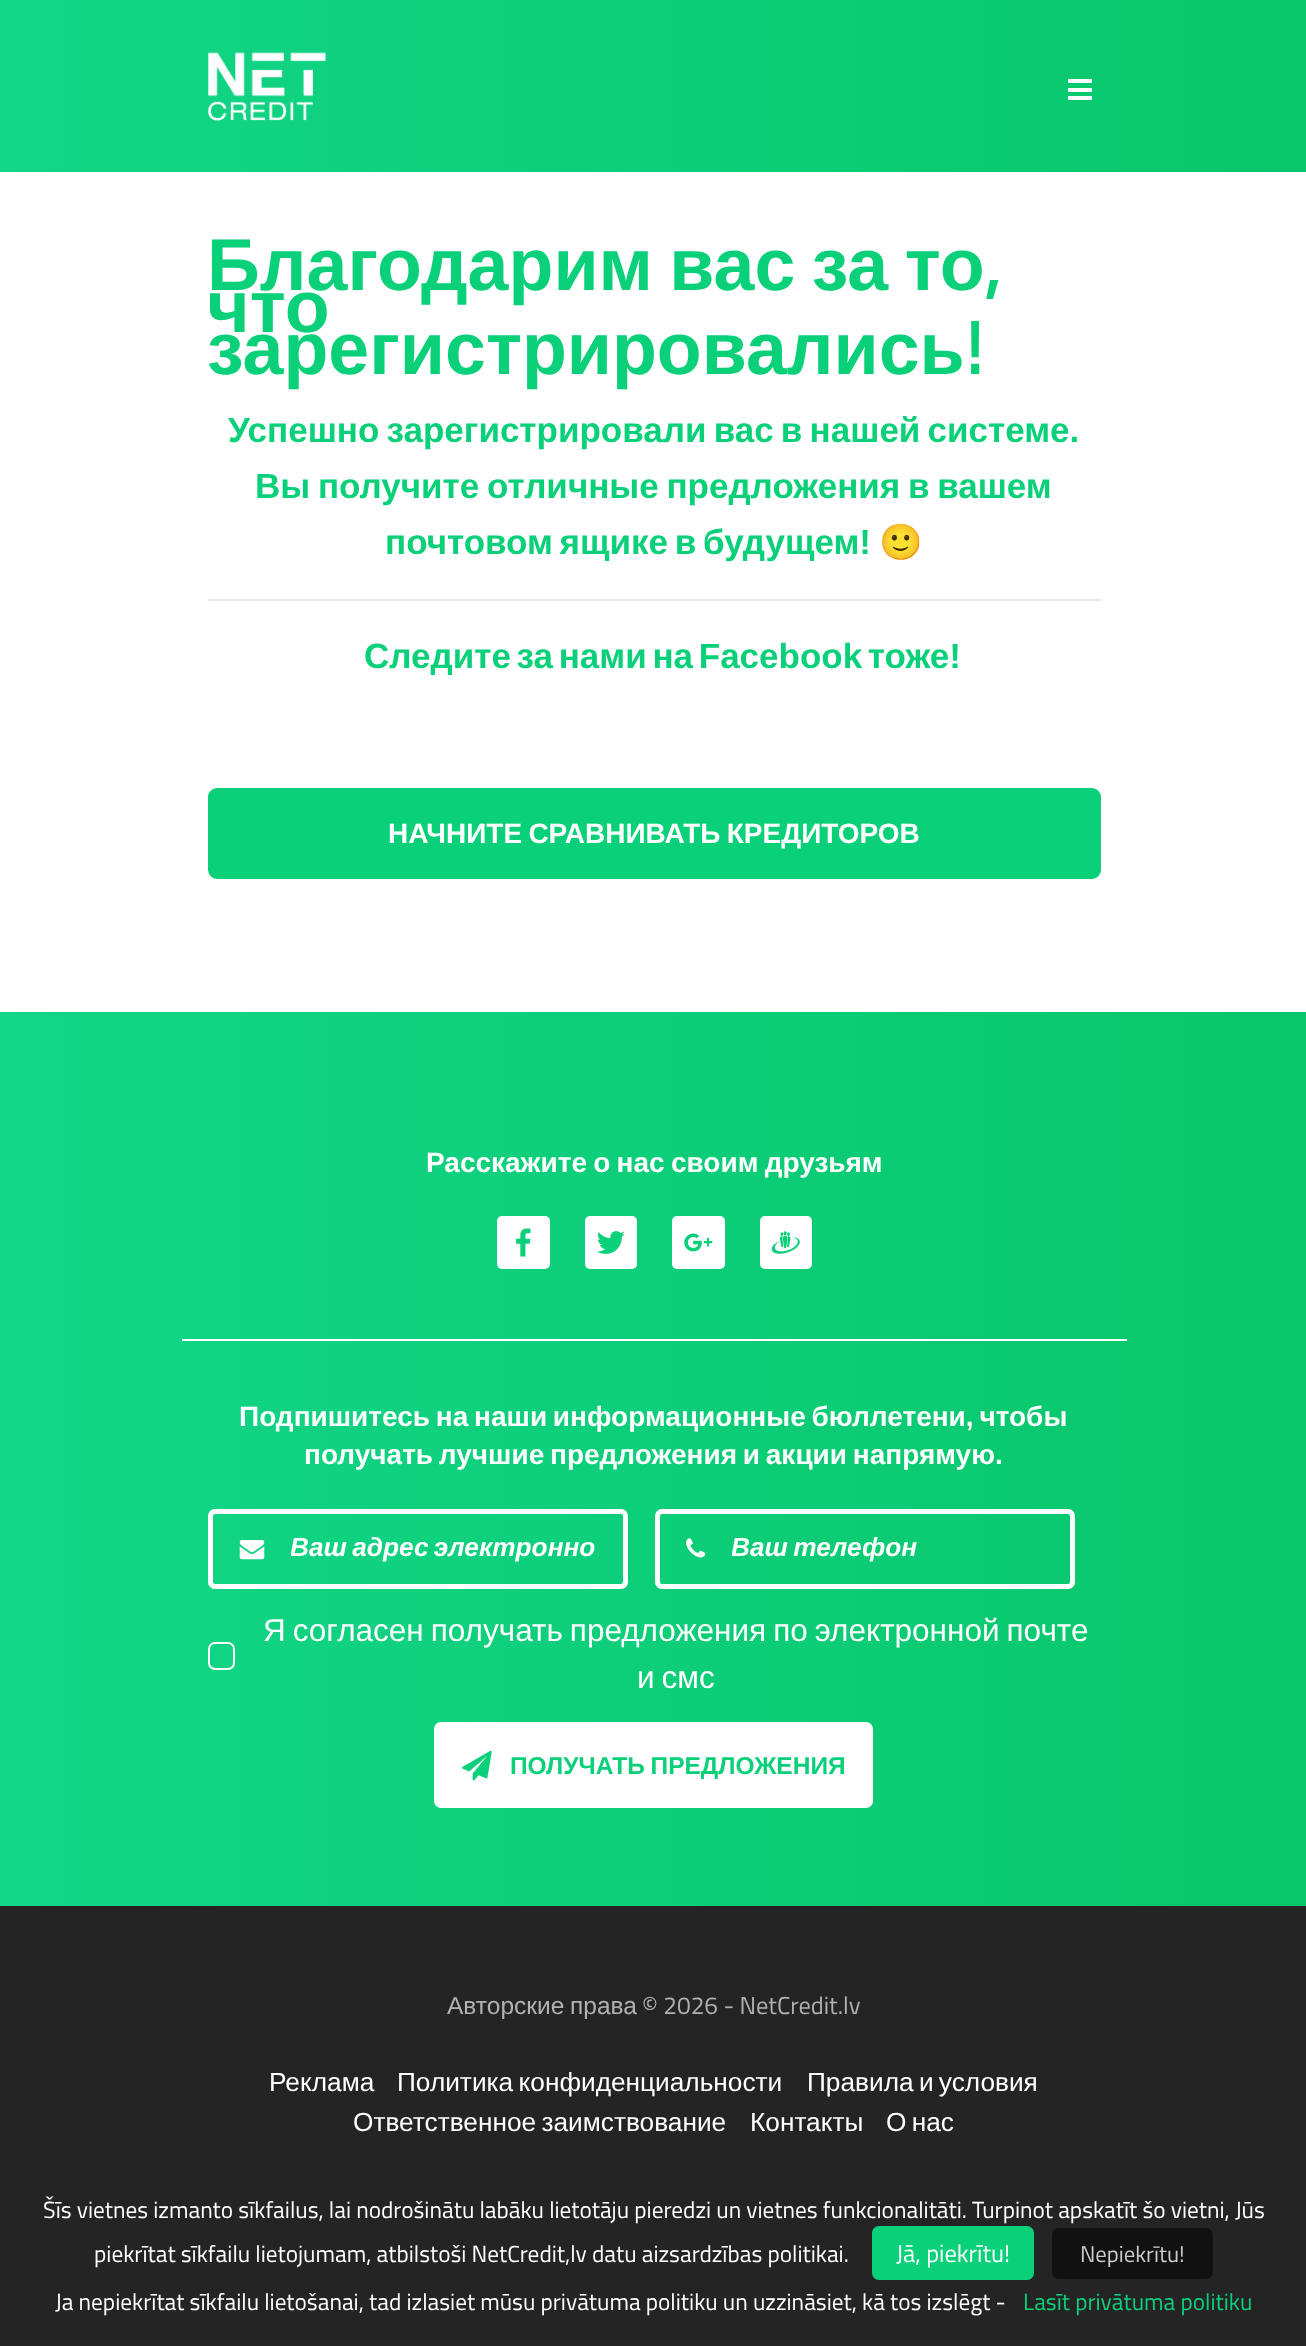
<!DOCTYPE html>
<meta charset="utf-8">
<style>body { margin: 0 } canvas { display: block }</style>
<canvas id="canvas" width="1306" height="2346"></canvas>
<img id="img1" src="img_01.png" hidden>
<img id="img2" src="img_02.png" hidden>
<img id="img3" src="img_03.png" hidden>
<img id="img4" src="img_04.png" hidden>
<img id="img5" src="img_05.png" hidden>
<img id="img6" src="img_06.png" hidden>
<img id="img7" src="img_07.png" hidden>
<img id="img8" src="img_08.png" hidden>
<script>
window.onload = function () {
	const canvas = document.getElementById("canvas");
	const ctx = canvas.getContext("2d");
	ctx.miterLimit = 4;
	ctx.fontKerning = "normal";
	function txt(s, x, y) {
		ctx.fillText(s, x, y);
	}
	function fill(x, y, w, h) {
		ctx.fillRect(x, y, w, h);
	}
	function round(x, y, w, h, r) {
		ctx.beginPath();
		ctx.roundRect(x, y, w, h, r);
		ctx.fill();
	}
	function img(id, x, y, w, h) {
		ctx.drawImage(document.getElementById(id), x, y, w, h);
	}
	let gradient;

	ctx.fillStyle = "#FFFFFF";
	fill(0, 0, 1306, 2346);
	gradient = ctx.createLinearGradient(0, 86, 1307, 86);
	gradient.addColorStop(0, "#12D688");
	gradient.addColorStop(1, "#08C66A");
	ctx.fillStyle = gradient;
	fill(0, 0, 1306, 172);
	img("img1", 208, 52, 118, 69);
	ctx.fillStyle = "#FFFFFF";
	fill(1068, 79, 24, 4);
	fill(1068, 88, 24, 4);
	fill(1068, 96, 24, 4);
	ctx.fillStyle = "#E6E6E6";
	fill(208, 599, 893, 2);
	ctx.fillStyle = "#0BD07A";
	ctx.beginPath();
	ctx.roundRect(209, 789, 891, 89, 8);
	ctx.fill();
	ctx.strokeStyle = "#0BD07A";
	ctx.lineWidth = 2;
	ctx.stroke();
	gradient = ctx.createLinearGradient(0, 1459, 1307, 1459);
	gradient.addColorStop(0, "#12D688");
	gradient.addColorStop(1, "#08C66A");
	ctx.fillStyle = gradient;
	fill(0, 1012, 1306, 894);
	ctx.fillStyle = "#FFFFFF";
	fill(182, 1339, 945, 2);
	round(497, 1216, 53, 53, 5);
	img("img2", 515, 1228, 16, 29);
	round(585, 1216, 52, 53, 5);
	img("img3", 597, 1231, 28, 23);
	round(672, 1216, 53, 53, 5);
	img("img4", 684, 1233, 29, 19);
	round(760, 1216, 52, 53, 5);
	img("img5", 771, 1231, 29, 23);
	ctx.beginPath();
	ctx.roundRect(210.5, 1511.5, 415, 75, 4.5);
	ctx.strokeStyle = "#FFFFFF";
	ctx.lineWidth = 5;
	ctx.stroke();
	img("img6", 239, 1540, 26, 20);
	ctx.beginPath();
	ctx.roundRect(657.5, 1511.5, 415, 75, 4.5);
	ctx.stroke();
	img("img7", 686, 1538, 20, 20);
	ctx.beginPath();
	ctx.roundRect(209, 1643, 25, 26, 6);
	ctx.lineWidth = 2;
	ctx.stroke();
	ctx.beginPath();
	ctx.roundRect(435, 1723, 437, 84, 6);
	ctx.fill();
	ctx.stroke();
	img("img8", 462, 1750, 30, 31);
	ctx.fillStyle = "#242424";
	fill(0, 1906, 1306, 440);
	ctx.fillStyle = "#0BD07A";
	round(872, 2226, 162, 54, 7);
	ctx.fillStyle = "#111111";
	round(1052, 2228, 161, 51, 7);
	ctx.wordSpacing = "-4px";
	ctx.font = "bold 73.5px Liberation Sans";
	ctx.fillStyle = "#0BD07A";
	txt("Благодарим вас за то", 207, 290);
	ctx.wordSpacing = "0px";
	ctx.font = "bold 73.5px Titillium Web";
	txt(",", 984, 290);
	ctx.font = "bold 73.5px Liberation Sans";
	txt("что", 207, 332);
	txt("зарегистрировались", 207, 374);
	ctx.font = "bold 73.5px Titillium Web";
	txt("!", 965, 374);
	ctx.wordSpacing = "-2.5px";
	ctx.font = "bold 35px Liberation Sans";
	txt("Успешно зарегистрировали вас в нашей системе.", 228, 442);
	ctx.wordSpacing = "-2px";
	txt("Вы получите отличные предложения в вашем", 255, 498);
	ctx.wordSpacing = "-3px";
	txt("почтовом ящике в будущем!", 385, 554);
	ctx.wordSpacing = "0px";
	ctx.font = "bold 35px Noto Color Emoji";
	txt("🙂", 879, 554);
	ctx.wordSpacing = "-4px";
	ctx.font = "bold 35px Liberation Sans";
	txt("Следите за нами на Facebook тоже!", 364, 668);
	ctx.wordSpacing = "-1.5px";
	ctx.font = "bold 28px Liberation Sans";
	ctx.fillStyle = "#FFFFFF";
	txt("НАЧНИТЕ СРАВНИВАТЬ КРЕДИТОРОВ", 388, 843);
	txt("Расскажите о нас своим друзьям", 426, 1172);
	ctx.wordSpacing = "-2px";
	txt("Подпишитесь на наши информационные бюллетени, чтобы", 239, 1426);
	txt("получать лучшие предложения и акции напрямую.", 304, 1464);
	ctx.save();
	ctx.beginPath();
	ctx.rect(291, 1526, 306, 40);
	ctx.clip();
	ctx.font = "italic bold 26.25px Liberation Sans";
	txt("Ваш адрес электронно", 290, 1556);
	ctx.restore();
	ctx.save();
	ctx.beginPath();
	ctx.rect(732, 1526, 311, 40);
	ctx.clip();
	ctx.font = "italic bold 26.25px Liberation Sans";
	txt("Ваш телефон", 731, 1556);
	ctx.restore();
	ctx.wordSpacing = "-1.75px";
	ctx.font = "31.5px Liberation Sans";
	txt("Я согласен получать предложения по электронной почте", 263, 1641);
	txt("и смс", 637, 1688);
	ctx.wordSpacing = "-1px";
	ctx.font = "bold 24.5px Liberation Sans";
	ctx.fillStyle = "#0BD07A";
	txt("ПОЛУЧАТЬ ПРЕДЛОЖЕНИЯ", 510, 1774);
	ctx.wordSpacing = "0px";
	ctx.font = "24.5px Liberation Sans";
	ctx.fillStyle = "#B1B1B1";
	txt("Авторские", 447, 2014);
	txt("права", 570, 2014);
	ctx.font = "24.5px Titillium Web";
	txt("© 2026 - NetCredit.lv", 642, 2014);
	ctx.font = "26.25px Liberation Sans";
	ctx.fillStyle = "#FFFFFF";
	txt("Реклама", 269, 2091);
	ctx.wordSpacing = "-2px";
	txt("Политика конфиденциальности", 397, 2091);
	txt("Правила и условия", 807, 2091);
	txt("Ответственное заимствование", 353, 2131);
	ctx.wordSpacing = "0px";
	txt("Контакты", 750, 2131);
	ctx.wordSpacing = "-2px";
	txt("О нас", 886, 2131);
	ctx.wordSpacing = "0px";
	ctx.font = "23.33px Titillium Web";
	txt("Šīs vietnes izmanto sīkfailus, lai nodrošinātu labāku lietotāju pieredzi un vietnes funkcionalitāti. Turpinot apskatīt šo vietni, Jūs", 43, 2218);
	txt("piekrītat sīkfailu lietojumam, atbilstoši NetCredit,lv datu aizsardzības politikai.", 94, 2262);
	ctx.font = "24.5px Titillium Web";
	txt("Jā, piekrītu!", 896, 2262);
	ctx.font = "22.75px Titillium Web";
	ctx.fillStyle = "#CCCCCC";
	txt("Nepiekrītu!", 1080, 2262);
	ctx.font = "23.33px Titillium Web";
	ctx.fillStyle = "#FFFFFF";
	txt("Ja nepiekrītat sīkfailu lietošanai, tad izlasiet mūsu privātuma politiku un uzzināsiet, kā tos izslēgt -", 55, 2310);
	ctx.fillStyle = "#0BD07A";
	txt("Lasīt privātuma politiku", 1023, 2310);
};
</script>
